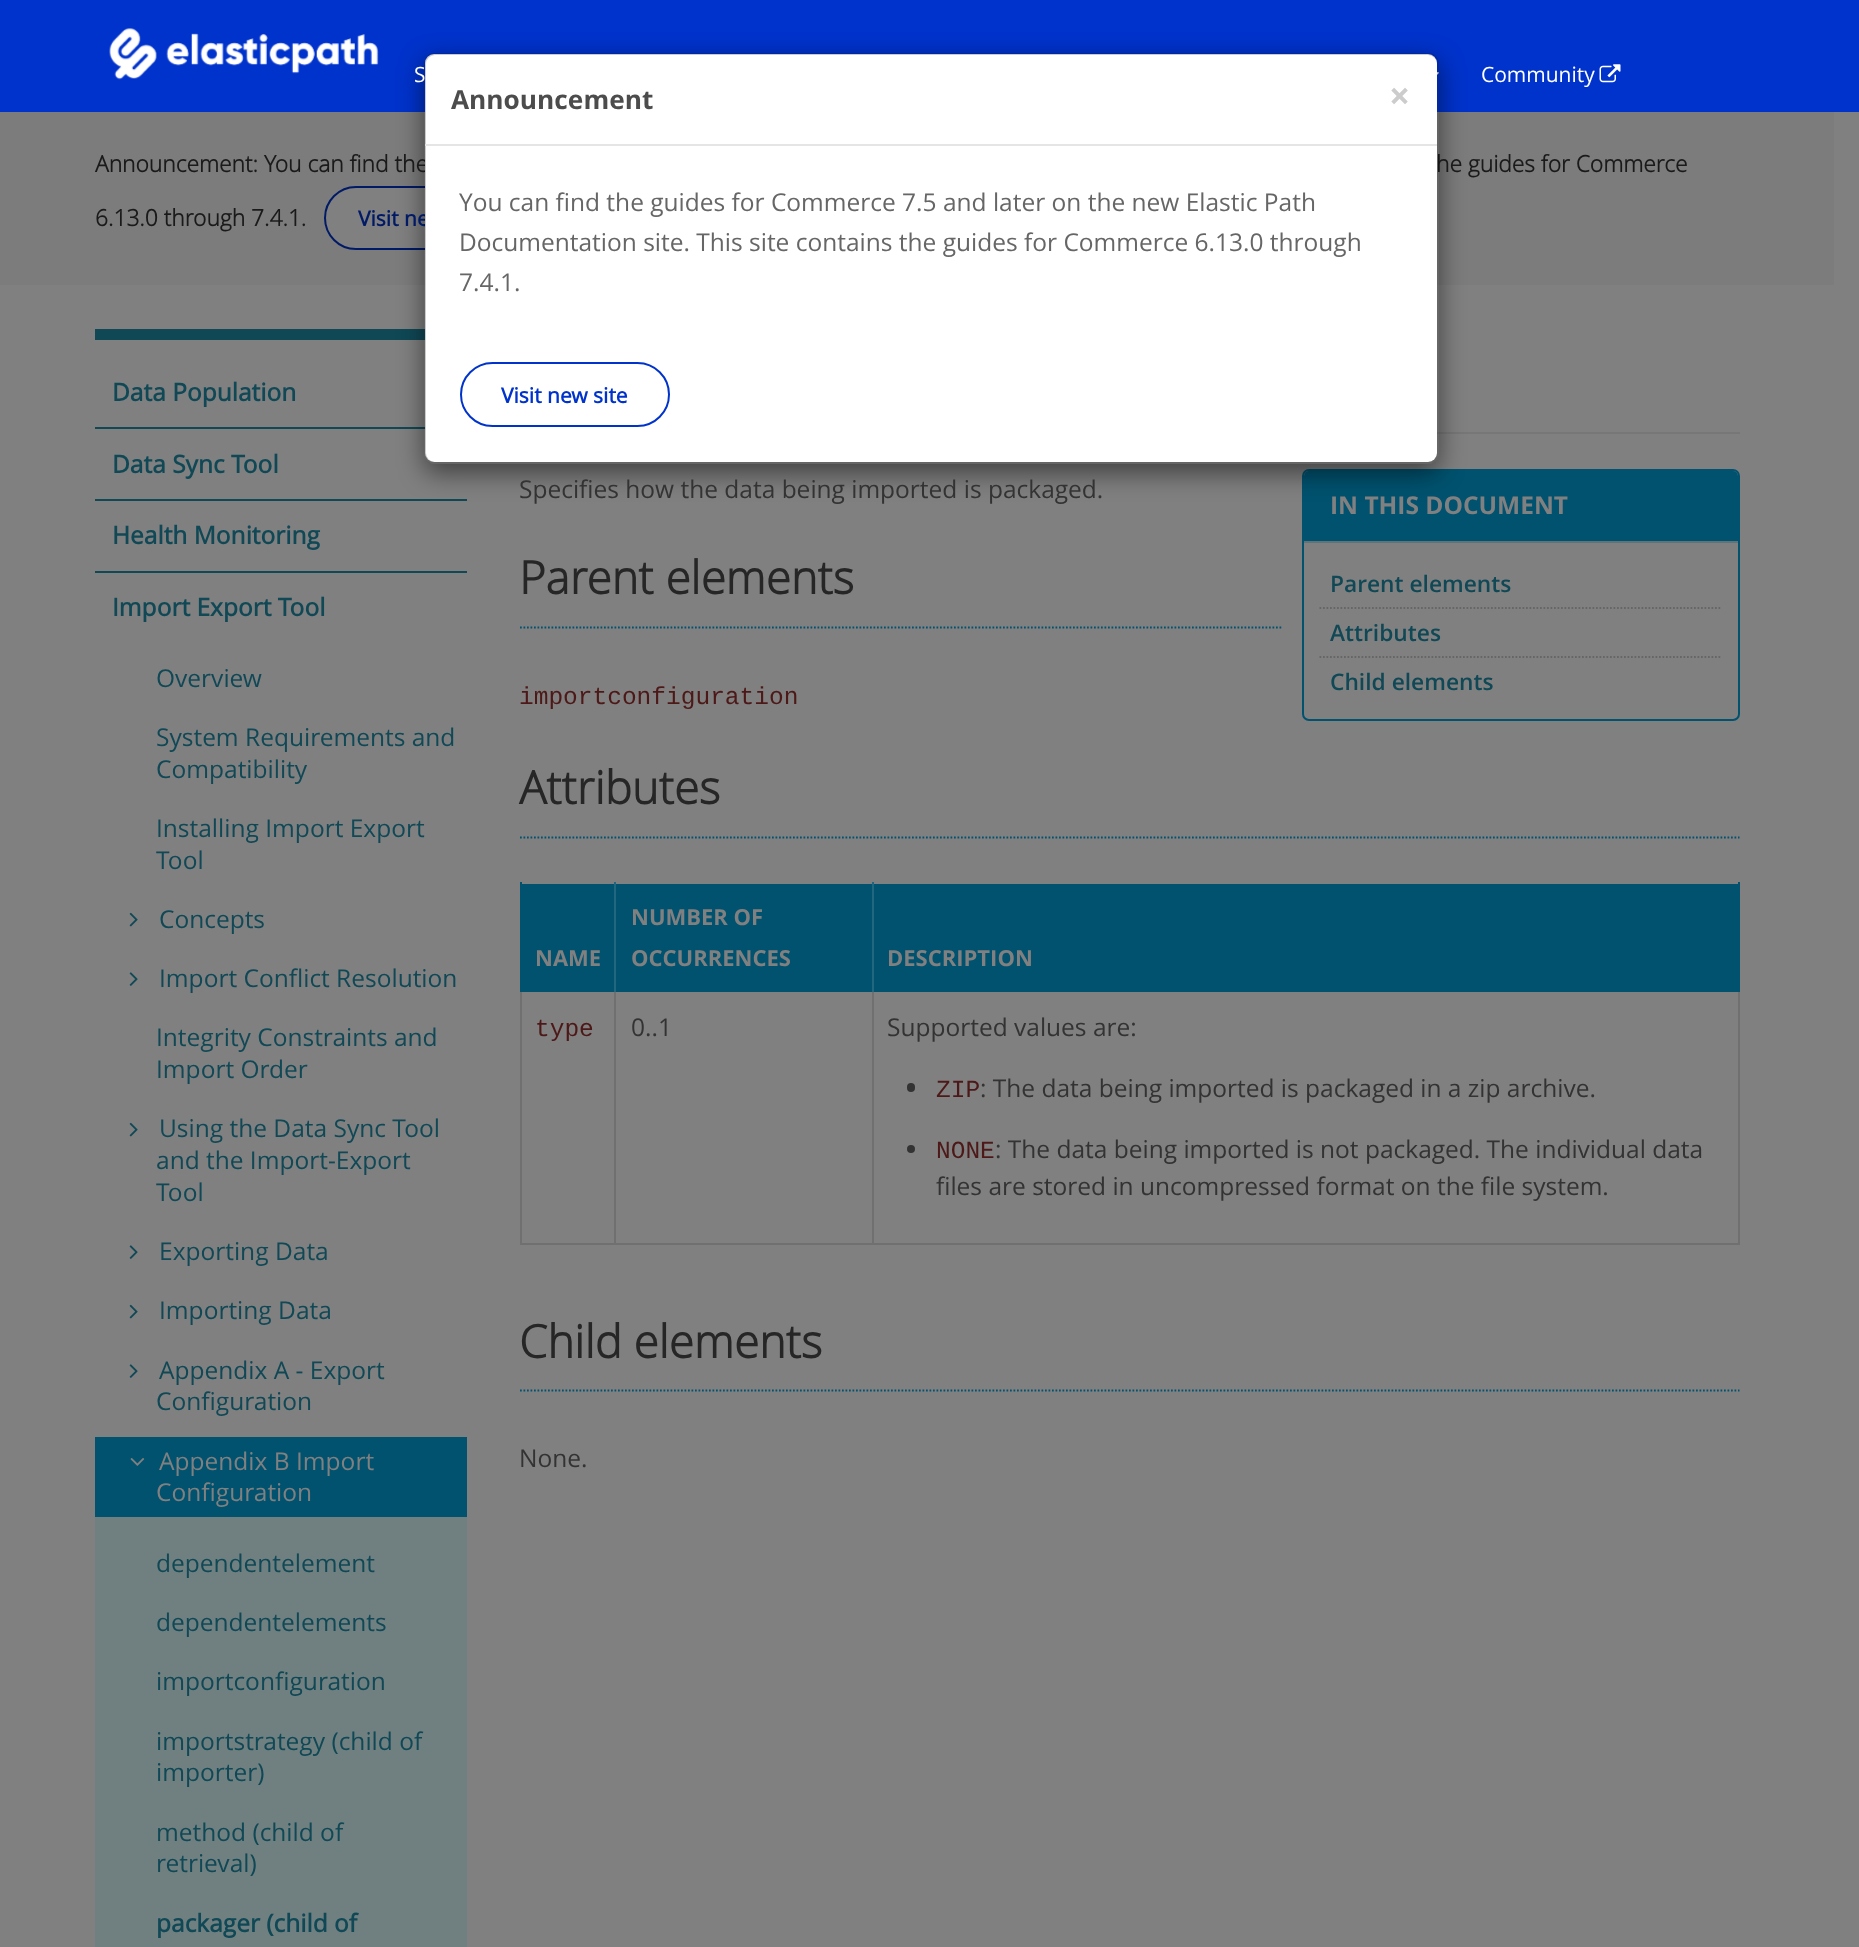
<!DOCTYPE html>
<meta charset="utf-8">
<style>body { margin: 0 } canvas { display: block }</style>
<canvas id="canvas" width="1859" height="1947"></canvas>
<img id="img1" src="img_01.png" hidden>
<img id="img2" src="img_02.png" hidden>
<img id="img3" src="img_03.png" hidden>
<img id="img4" src="img_04.png" hidden>
<img id="img5" src="img_05.png" hidden>
<img id="img6" src="img_06.png" hidden>
<script>
window.onload = function () {
	const canvas = document.getElementById("canvas");
	const ctx = canvas.getContext("2d");
	ctx.miterLimit = 4;
	ctx.fontKerning = "normal";
	function txt(s, x, y) {
		ctx.fillText(s, x, y);
	}
	function fill(x, y, w, h) {
		ctx.fillRect(x, y, w, h);
	}
	function round(x, y, w, h, r) {
		ctx.beginPath();
		ctx.roundRect(x, y, w, h, r);
		ctx.fill();
	}
	function img(id, x, y, w, h) {
		ctx.drawImage(document.getElementById(id), x, y, w, h);
	}

	ctx.fillStyle = "#808080";
	fill(0, 0, 1859, 1947);
	ctx.fillStyle = "#0033CC";
	fill(0, 0, 1859, 112);
	img("img1", 109, 28, 270, 52);
	img("img2", 1437, 72, 2, 3);
	img("img3", 1599, 64, 22, 19);
	ctx.fillStyle = "#104856";
	fill(95, 329, 330, 11);
	fill(95, 427, 330, 2);
	fill(95, 499, 372, 2);
	fill(95, 571, 372, 2);
	img("img4", 129, 912, 9, 15);
	img("img5", 129, 972, 9, 14);
	img("img4", 129, 1122, 9, 15);
	img("img5", 129, 1245, 9, 14);
	img("img4", 129, 1304, 9, 15);
	img("img5", 129, 1364, 9, 14);
	ctx.fillStyle = "#708080";
	fill(95, 1517, 372, 430);
	ctx.fillStyle = "#00526F";
	fill(95, 1437, 372, 80);
	img("img6", 130, 1458, 15, 8);
	ctx.fillStyle = "#777777";
	fill(1437, 432, 303, 2);
	ctx.beginPath();
	ctx.moveTo(520, 627.5);
	ctx.lineTo(1739.5, 627.5);
	ctx.strokeStyle = "#00526F";
	ctx.lineWidth = 1.8;
	ctx.setLineDash([1.75, 1.75]);
	ctx.stroke();
	ctx.fillStyle = "#808080";
	ctx.beginPath();
	ctx.moveTo(1299, 460);
	ctx.bezierCurveTo(1290, 460, 1283, 467, 1283, 476);
	ctx.lineTo(1283, 714);
	ctx.bezierCurveTo(1283, 723, 1290, 730, 1299, 730);
	ctx.lineTo(1722, 730);
	ctx.bezierCurveTo(1729, 730, 1735, 726, 1737, 719);
	ctx.bezierCurveTo(1736, 720, 1734, 721, 1732, 721);
	ctx.lineTo(1309, 721);
	ctx.bezierCurveTo(1305, 721, 1302, 718, 1302, 714);
	ctx.lineTo(1302, 476);
	ctx.bezierCurveTo(1302, 472, 1305, 469, 1309, 469);
	ctx.lineTo(1732, 469);
	ctx.bezierCurveTo(1734, 469, 1736, 470, 1737, 471);
	ctx.bezierCurveTo(1735, 464, 1729, 460, 1722, 460);
	ctx.closePath();
	ctx.fill();
	ctx.beginPath();
	ctx.roundRect(1303, 470, 436, 250, 6);
	ctx.fill();
	ctx.lineWidth = 2;
	ctx.setLineDash([]);
	ctx.stroke();
	ctx.fillStyle = "#00526F";
	ctx.beginPath();
	ctx.roundRect(1304, 471, 434, 72, [5, 5, 0, 0]);
	ctx.fill();
	ctx.fillStyle = "#7C7C7C";
	fill(0, 112, 1834, 173);
	ctx.fillStyle = "#808080";
	ctx.beginPath();
	ctx.roundRect(325, 187, 194, 62, 31);
	ctx.fill();
	ctx.strokeStyle = "#001A66";
	ctx.stroke();
	ctx.save();
	ctx.beginPath();
	ctx.moveTo(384, 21);
	ctx.lineTo(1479, 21);
	ctx.lineTo(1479, 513);
	ctx.lineTo(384, 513);
	ctx.closePath();
	ctx.moveTo(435, 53);
	ctx.lineTo(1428, 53);
	ctx.bezierCurveTo(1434, 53, 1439, 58, 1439, 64);
	ctx.lineTo(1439, 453);
	ctx.bezierCurveTo(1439, 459, 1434, 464, 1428, 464);
	ctx.lineTo(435, 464);
	ctx.bezierCurveTo(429, 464, 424, 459, 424, 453);
	ctx.lineTo(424, 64);
	ctx.bezierCurveTo(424, 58, 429, 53, 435, 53);
	ctx.closePath();
	ctx.clip("evenodd");
	ctx.fillStyle = "rgba(0, 0, 0, 0.5)";
	ctx.filter = "blur(13px)";
	ctx.beginPath();
	ctx.roundRect(424, 61, 1015, 412, 11);
	ctx.fill();
	ctx.filter = "none";
	ctx.restore();
	ctx.beginPath();
	ctx.moveTo(520, 837.5);
	ctx.lineTo(1739.5, 837.5);
	ctx.strokeStyle = "#00526F";
	ctx.lineWidth = 1.8;
	ctx.setLineDash([1.75, 1.75]);
	ctx.stroke();
	ctx.fillStyle = "#00526F";
	fill(522, 884, 92, 108);
	ctx.fillStyle = "#707070";
	fill(1738, 991, 2, 253);
	fill(872, 1243, 868, 2);
	fill(872, 991, 2, 253);
	fill(614, 1243, 259, 2);
	fill(614, 991, 2, 253);
	ctx.fillStyle = "#226780";
	fill(614, 882, 2, 110);
	ctx.fillStyle = "#707070";
	fill(520, 1243, 96, 2);
	fill(520, 991, 2, 253);
	ctx.fillStyle = "#00526F";
	fill(520, 882, 2, 110);
	fill(616, 884, 256, 108);
	ctx.fillStyle = "#226780";
	fill(872, 882, 2, 110);
	ctx.fillStyle = "#00526F";
	fill(874, 884, 864, 108);
	fill(1738, 882, 2, 110);
	ctx.fillStyle = "#333333";
	round(907, 1083, 8, 9, 4);
	ctx.beginPath();
	ctx.arc(911, 1149, 4, 0, Math.PI * 2);
	ctx.fill();
	ctx.beginPath();
	ctx.moveTo(520, 1390.5);
	ctx.lineTo(1739.5, 1390.5);
	ctx.stroke();
	ctx.fillStyle = "#5E7479";
	fill(1304, 541, 434, 2);
	ctx.beginPath();
	ctx.moveTo(1319.5, 608);
	ctx.lineTo(1722, 608);
	ctx.strokeStyle = "#666666";
	ctx.stroke();
	ctx.beginPath();
	ctx.moveTo(1319.5, 657);
	ctx.lineTo(1722, 657);
	ctx.stroke();
	ctx.font = "21px 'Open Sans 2'";
	ctx.fillStyle = "#FFFFFF";
	txt("S", 414, 82);
	txt("Community", 1481, 82);
	ctx.font = "bold 24.5px 'Open Sans 2'";
	ctx.fillStyle = "#104856";
	txt("Data Population", 112, 401);
	txt("Data Sync Tool", 112, 473);
	txt("Health Monitoring", 112, 544);
	txt("Import Export Tool", 112, 616);
	ctx.font = "24.5px Open Sans";
	txt("Overview", 156, 687);
	txt("System Requirements and", 156, 746);
	txt("Compatibility", 156, 778);
	txt("Installing Import Export", 156, 837);
	txt("Tool", 156, 869);
	txt("Concepts", 159, 928);
	txt("Import Conflict Resolution", 159, 987);
	txt("Integrity Constraints and", 156, 1046);
	txt("Import Order", 156, 1078);
	txt("Using the Data Sync Tool", 159, 1137);
	txt("and the Import-Export", 156, 1169);
	txt("Tool", 156, 1201);
	txt("Exporting Data", 159, 1260);
	txt("Importing Data", 159, 1319);
	txt("Appendix A - Export", 159, 1379);
	txt("Configuration", 156, 1410);
	ctx.fillStyle = "#808080";
	txt("Appendix B Import", 159, 1470);
	txt("Configuration", 156, 1501);
	ctx.fillStyle = "#104856";
	txt("dependentelement", 156, 1572);
	txt("dependentelements", 156, 1631);
	txt("importconfiguration", 156, 1690);
	txt("importstrategy (child of", 156, 1750);
	txt("importer)", 156, 1781);
	txt("method (child of", 156, 1841);
	txt("retrieval)", 156, 1872);
	ctx.font = "bold 24.5px 'Open Sans 2'";
	txt("packager (child of", 156, 1932);
	ctx.font = "24.5px 'Open Sans 2'";
	ctx.fillStyle = "#333333";
	txt("Specifies how the data being imported is packaged.", 519, 498);
	ctx.font = "bold 45.5px Open Sans";
	ctx.fillStyle = "#262626";
	txt("Parent elements", 519, 594);
	ctx.font = "24.5px Liberation Mono";
	ctx.fillStyle = "#4D1818";
	txt("importconfiguration", 519, 704);
	ctx.font = "bold 45.5px Open Sans";
	ctx.fillStyle = "#262626";
	txt("Attributes", 519, 804);
	ctx.font = "bold 22px 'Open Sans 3'";
	ctx.fillStyle = "#808080";
	txt("NAME", 535, 966);
	txt("NUMBER OF", 631, 925);
	txt("OCCURRENCES", 631, 966);
	txt("DESCRIPTION", 887, 966);
	ctx.font = "24.5px Liberation Mono";
	ctx.fillStyle = "#4D1818";
	txt("type", 535, 1036);
	ctx.font = "24.5px 'Open Sans 2'";
	ctx.fillStyle = "#333333";
	txt("0..1", 631, 1036);
	txt("Supported values are:", 887, 1036);
	ctx.font = "24.5px Liberation Mono";
	ctx.fillStyle = "#4D1818";
	txt("ZIP", 936, 1097);
	ctx.font = "24.5px 'Open Sans 2'";
	ctx.fillStyle = "#333333";
	txt(": The data being imported is packaged in a zip archive.", 980, 1097);
	ctx.font = "24.5px Liberation Mono";
	ctx.fillStyle = "#4D1818";
	txt("NONE", 936, 1158);
	ctx.font = "24.5px 'Open Sans 2'";
	ctx.fillStyle = "#333333";
	txt(": The data being imported is not packaged. The individual data", 995, 1158);
	txt("files are stored in uncompressed format on the file system.", 936, 1195);
	ctx.font = "bold 45.5px Open Sans";
	ctx.fillStyle = "#262626";
	txt("Child elements", 519, 1358);
	ctx.font = "24.5px 'Open Sans 2'";
	ctx.fillStyle = "#333333";
	txt("None.", 519, 1467);
	ctx.font = "bold 24.5px 'Open Sans 3'";
	ctx.fillStyle = "#808080";
	txt("IN THIS DOCUMENT", 1330, 514);
	ctx.font = "600 22.75px Open Sans";
	ctx.fillStyle = "#104856";
	txt("Parent elements", 1330, 592);
	txt("Attributes", 1330, 641);
	txt("Child elements", 1330, 690);
	ctx.font = "bold 22.75px Open Sans";
	ctx.fillStyle = "#1A1A1A";
	txt("Announcement: You can find the", 95, 172);
	txt("he guides for Commerce", 1436, 172);
	txt("6.13.0 through 7.4.1.", 95, 226);
	ctx.font = "bold 21px 'Open Sans 2'";
	ctx.fillStyle = "#001A66";
	txt("Visit ne", 358, 226);
	ctx.fillStyle = "#FFFFFF";
	round(425, 54, 1012, 408, 9);
	ctx.beginPath();
	ctx.roundRect(425, 54, 1013, 409, 10);
	ctx.strokeStyle = "rgba(0, 0, 0, 0.2)";
	ctx.lineWidth = 2;
	ctx.setLineDash([]);
	ctx.stroke();
	ctx.beginPath();
	ctx.roundRect(461, 363, 208, 63, 31.5);
	ctx.strokeStyle = "#0033CC";
	ctx.stroke();
	ctx.fillStyle = "#0033CC";
	txt("Visit new site", 501, 403);
	ctx.font = "24.5px 'Open Sans 2'";
	ctx.fillStyle = "#666666";
	txt("7.4.1.", 459, 291);
	txt("Documentation site. This site contains the guides for Commerce 6.13.0 through", 459, 251);
	txt("You can find the guides for Commerce 7.5 and later on the new Elastic Path", 459, 211);
	ctx.font = "bold 37px 'Open Sans 3'";
	ctx.fillStyle = "#CCCCCC";
	txt("×", 1389, 109);
	ctx.font = "bold 26.25px 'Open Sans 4'";
	ctx.fillStyle = "#4C4C4C";
	txt("Announcement", 451, 109);
	ctx.fillStyle = "#E5E5E5";
	fill(425, 144, 1012, 2);
};
</script>
